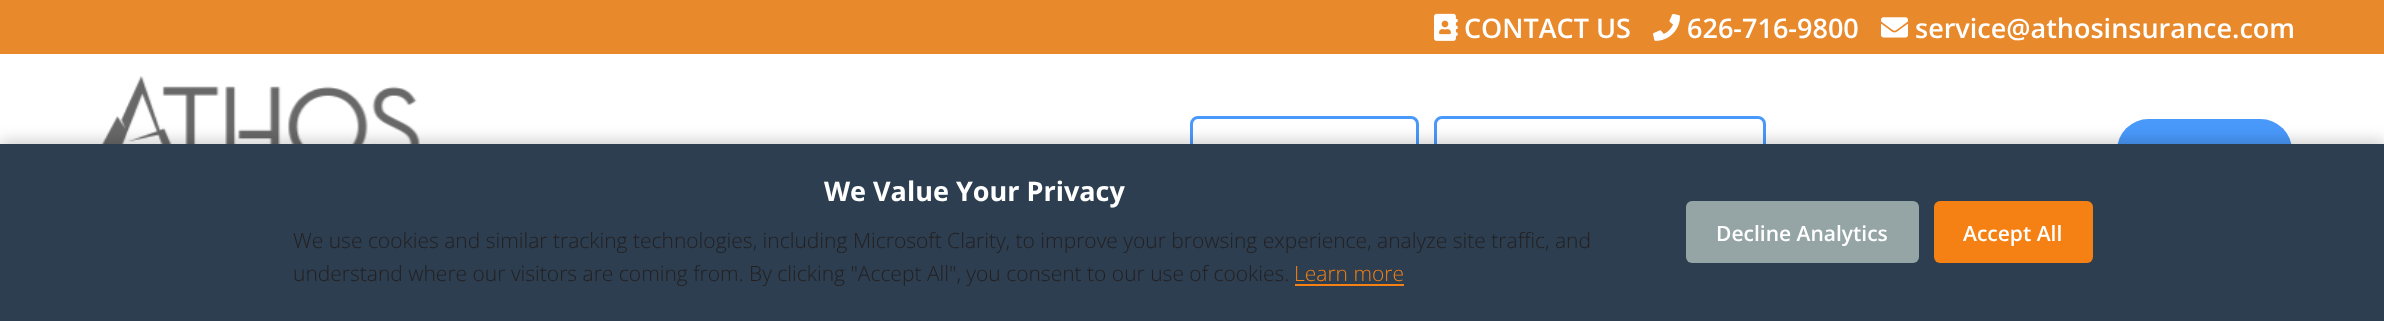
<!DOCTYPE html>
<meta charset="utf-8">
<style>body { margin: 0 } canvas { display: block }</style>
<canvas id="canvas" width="2384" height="321"></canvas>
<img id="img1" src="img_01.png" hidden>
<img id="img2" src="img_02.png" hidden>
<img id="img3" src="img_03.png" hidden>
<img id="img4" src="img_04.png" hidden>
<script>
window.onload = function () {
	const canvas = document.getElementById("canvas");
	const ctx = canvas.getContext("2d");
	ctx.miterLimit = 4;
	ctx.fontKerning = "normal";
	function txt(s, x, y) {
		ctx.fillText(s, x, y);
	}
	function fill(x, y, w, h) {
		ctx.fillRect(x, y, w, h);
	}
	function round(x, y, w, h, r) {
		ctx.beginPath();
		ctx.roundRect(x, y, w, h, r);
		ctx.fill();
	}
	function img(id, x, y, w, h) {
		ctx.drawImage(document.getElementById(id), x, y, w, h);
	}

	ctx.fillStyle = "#FFFFFF";
	fill(0, 0, 2384, 321);
	ctx.fillStyle = "#E8892C";
	fill(0, 0, 2384, 54);
	img("img1", 1434, 13, 24, 28);
	img("img2", 1653, 13, 27, 28);
	img("img3", 1881, 17, 27, 21);
	img("img4", 101, 76, 319, 68);
	ctx.beginPath();
	ctx.roundRect(1191.5, 117.5, 226, 66, 6.5);
	ctx.strokeStyle = "#4999FB";
	ctx.lineWidth = 3;
	ctx.stroke();
	ctx.beginPath();
	ctx.roundRect(1435.5, 117.5, 329, 66, 6.5);
	ctx.stroke();
	ctx.fillStyle = "#4999FB";
	round(2117, 119, 175, 63, 31.5);
	ctx.fillStyle = "rgba(0, 0, 0, 0.2)";
	ctx.filter = "blur(7.5px)";
	ctx.beginPath();
	ctx.rect(0, 141, 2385, 177);
	ctx.fill();
	ctx.filter = "none";
	ctx.fillStyle = "#2C3E50";
	fill(0, 144, 2384, 177);
	ctx.fillStyle = "#F58013";
	fill(1295, 284, 109, 2);
	ctx.fillStyle = "#95A5A6";
	round(1686, 201, 233, 62, 6);
	ctx.fillStyle = "#F58013";
	round(1934, 201, 159, 62, 6);
	ctx.font = "600 27px Open Sans";
	ctx.fillStyle = "#FFFFFF";
	txt("CONTACT US", 1464, 38);
	txt("626-716-9800", 1687, 38);
	txt("service@athosinsurance.com", 1915, 38);
	ctx.font = "bold 27px Open Sans";
	txt("We Value Your Privacy", 824, 201);
	ctx.font = "300 21px Open Sans";
	ctx.fillStyle = "#231F20";
	txt("We use cookies and similar tracking technologies, including Microsoft Clarity, to improve your browsing experience, analyze site traffic, and", 293, 248);
	txt("understand where our visitors are coming from. By clicking \"Accept All\", you consent to our use of cookies.", 293, 281);
	ctx.fillStyle = "#F58013";
	txt("Learn more", 1294, 281);
	ctx.font = "600 21px Open Sans";
	ctx.fillStyle = "#FFFFFF";
	txt("Decline Analytics", 1716, 241);
	txt("Accept All", 1963, 241);
};
</script>
